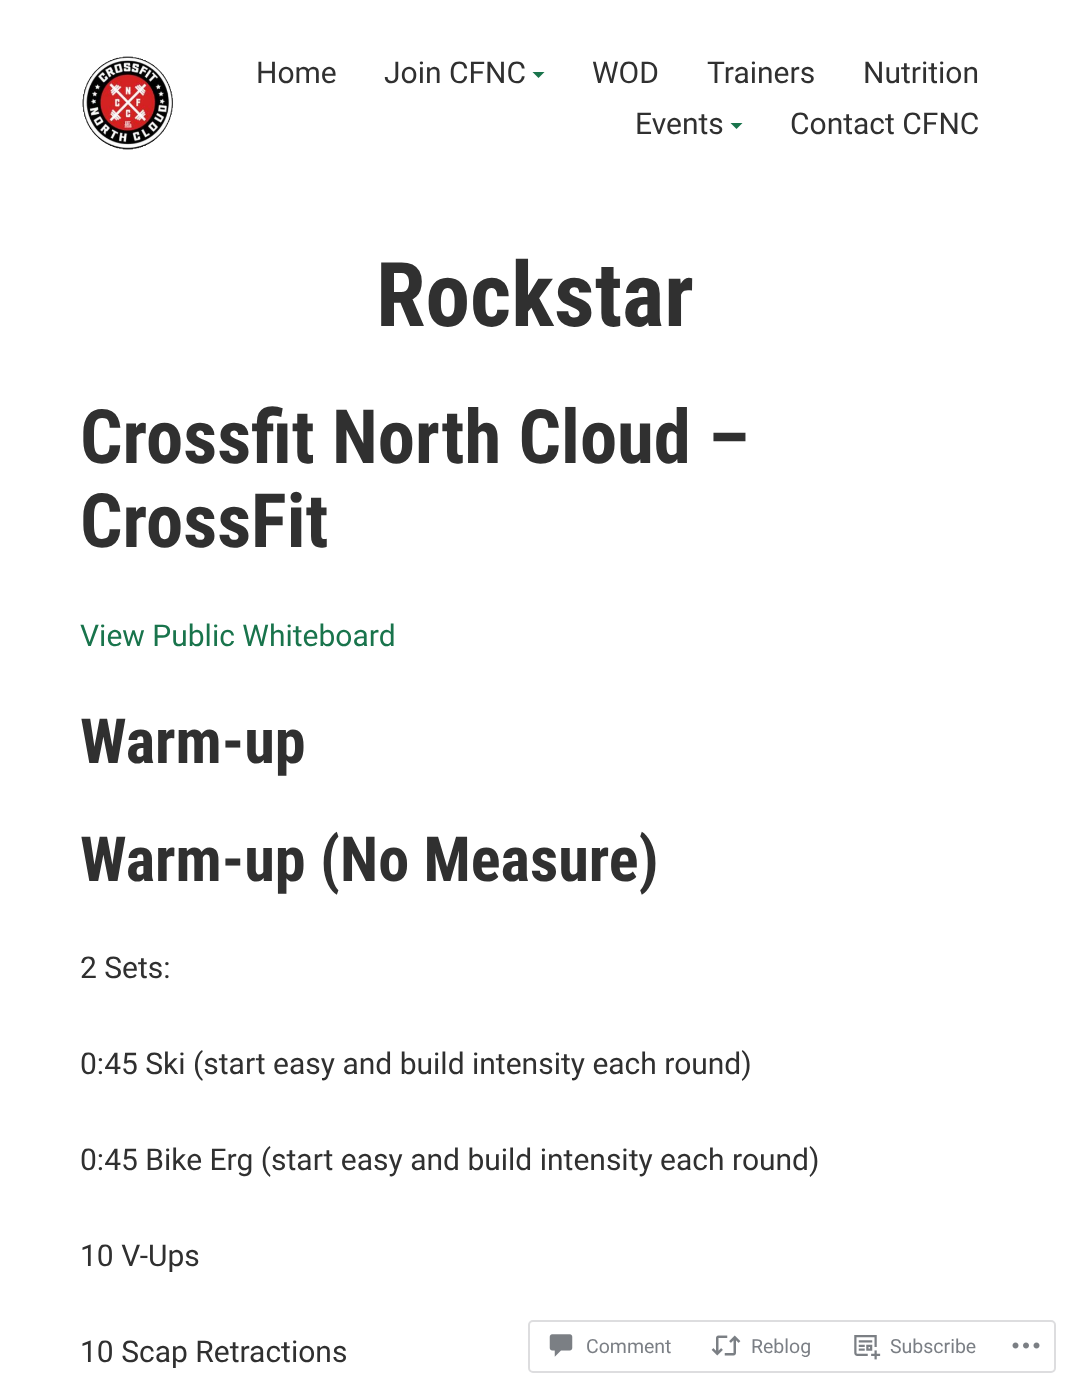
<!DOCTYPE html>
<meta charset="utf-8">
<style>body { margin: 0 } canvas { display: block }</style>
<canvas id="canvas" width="1070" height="1387"></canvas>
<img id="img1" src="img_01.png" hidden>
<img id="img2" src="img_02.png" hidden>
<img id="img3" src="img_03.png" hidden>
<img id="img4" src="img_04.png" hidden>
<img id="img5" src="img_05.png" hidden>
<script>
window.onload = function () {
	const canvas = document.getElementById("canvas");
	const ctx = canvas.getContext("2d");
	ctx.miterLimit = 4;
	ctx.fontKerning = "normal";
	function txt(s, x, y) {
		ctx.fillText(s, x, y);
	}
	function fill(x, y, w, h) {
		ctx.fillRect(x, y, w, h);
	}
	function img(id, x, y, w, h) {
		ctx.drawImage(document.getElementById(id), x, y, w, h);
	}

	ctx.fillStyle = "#FFFFFF";
	fill(0, 0, 1070, 1387);
	img("img1", 82, 56, 91, 94);
	ctx.fillStyle = "#19744C";
	ctx.beginPath();
	ctx.moveTo(532.5, 72);
	ctx.lineTo(544.5, 72);
	ctx.lineTo(538.5, 78);
	ctx.closePath();
	ctx.fill();
	ctx.beginPath();
	ctx.moveTo(730.5, 123);
	ctx.lineTo(742.5, 123);
	ctx.lineTo(736.5, 129);
	ctx.closePath();
	ctx.fill();
	ctx.beginPath();
	ctx.roundRect(529, 1321, 526, 51, 4);
	ctx.strokeStyle = "#DDDDDF";
	ctx.lineWidth = 2;
	ctx.stroke();
	img("img2", 549, 1334, 24, 23);
	img("img3", 711, 1335, 30, 21);
	img("img4", 854, 1335, 27, 25);
	img("img5", 1012, 1342, 28, 7);
	ctx.font = "30px Roboto";
	ctx.fillStyle = "#303030";
	txt("Home", 256, 83);
	txt("Join CFNC", 384, 83);
	txt("WOD", 592, 83);
	txt("Trainers", 707, 83);
	txt("Nutrition", 863, 83);
	txt("Events", 635, 134);
	txt("Contact CFNC", 790, 134);
	ctx.font = "bold 89.5px Roboto Condensed";
	txt("Rockstar", 376, 326);
	ctx.font = "bold 74.75px Roboto Condensed";
	txt("Crossfit North Cloud –", 80, 463);
	txt("CrossFit", 80, 547);
	ctx.font = "30px Roboto";
	ctx.fillStyle = "#19744C";
	txt("View Public Whiteboard", 80, 646);
	ctx.font = "bold 62.25px Roboto Condensed";
	ctx.fillStyle = "#303030";
	txt("Warm-up", 80, 763);
	txt("Warm-up (No Measure)", 80, 881);
	ctx.font = "30px Roboto";
	txt("2 Sets:", 80, 978);
	txt("0:45 Ski (start easy and build intensity each round)", 80, 1074);
	txt("0:45 Bike Erg (start easy and build intensity each round)", 80, 1170);
	txt("10 V-Ups", 80, 1266);
	txt("10 Scap Retractions", 80, 1362);
	ctx.font = "19.5px Roboto";
	ctx.fillStyle = "#7B7F85";
	txt("Comment", 586, 1353);
	txt("Reblog", 751, 1353);
	txt("Subscribe", 890, 1353);
};
</script>
